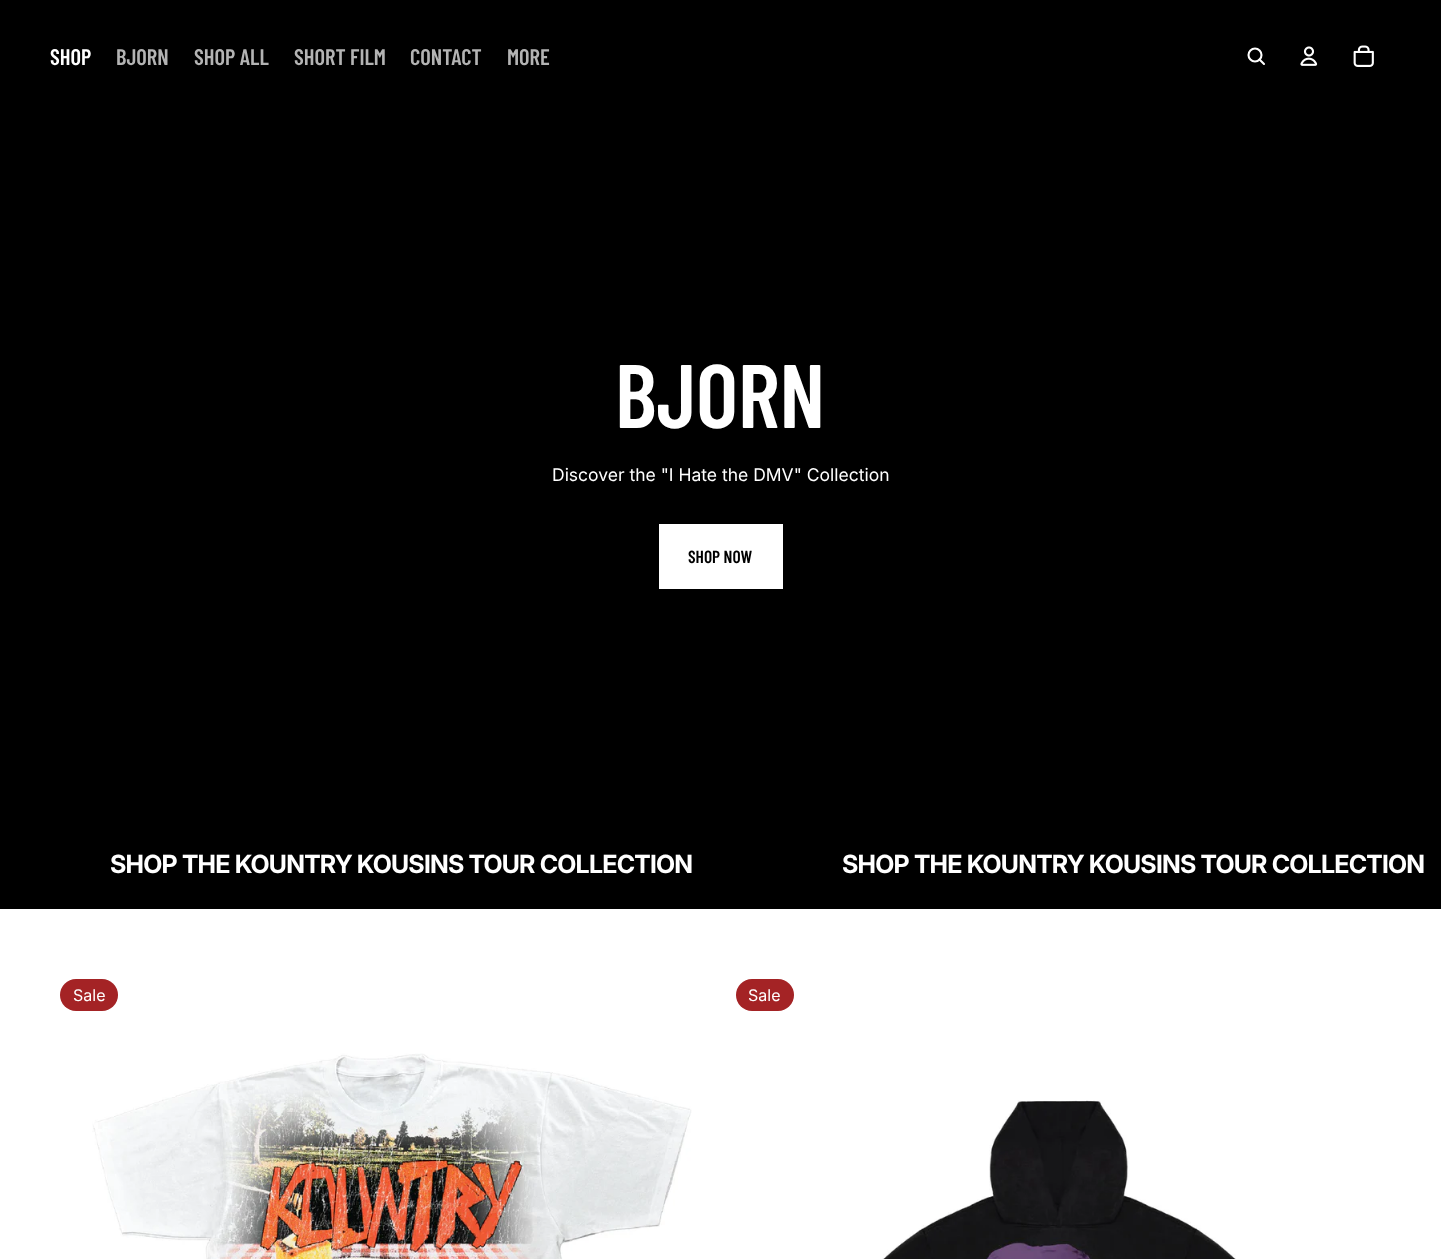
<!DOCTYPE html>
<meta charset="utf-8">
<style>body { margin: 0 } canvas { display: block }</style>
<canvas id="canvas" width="1441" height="1259"></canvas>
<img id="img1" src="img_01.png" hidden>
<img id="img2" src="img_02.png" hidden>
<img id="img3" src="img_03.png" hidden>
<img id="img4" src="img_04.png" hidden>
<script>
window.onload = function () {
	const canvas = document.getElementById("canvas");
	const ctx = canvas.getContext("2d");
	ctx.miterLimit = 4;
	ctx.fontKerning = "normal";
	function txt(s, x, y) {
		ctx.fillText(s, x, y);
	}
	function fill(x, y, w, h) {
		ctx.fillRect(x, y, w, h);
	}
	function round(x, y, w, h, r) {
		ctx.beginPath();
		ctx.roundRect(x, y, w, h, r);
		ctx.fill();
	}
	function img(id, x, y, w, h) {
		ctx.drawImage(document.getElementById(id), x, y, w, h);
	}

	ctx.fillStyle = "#FFFFFF";
	fill(0, 0, 1441, 1259);
	ctx.fillStyle = "#000000";
	fill(0, 0, 1441, 909);
	ctx.beginPath();
	ctx.arc(1255, 55, 6.5, 0, Math.PI * 2);
	ctx.strokeStyle = "#FFFFFF";
	ctx.lineWidth = 2.1;
	ctx.stroke();
	ctx.beginPath();
	ctx.moveTo(1259.5, 59.5);
	ctx.lineTo(1264, 64);
	ctx.lineCap = "round";
	ctx.lineJoin = "round";
	ctx.stroke();
	img("img1", 1300, 46, 18, 20);
	img("img2", 1353, 45, 21, 22);
	ctx.fillStyle = "#FFFFFF";
	fill(659, 524, 124, 65);
	ctx.fillStyle = "#A42325";
	round(60, 979, 58, 32, 16);
	img("img3", 92, 1053, 600, 206);
	round(736, 979, 58, 32, 16);
	img("img4", 882, 1100, 354, 159);
	ctx.font = "600 22.5px Barlow Condensed";
	ctx.fillStyle = "#FFFFFF";
	txt("SHOP", 50, 65);
	ctx.fillStyle = "#B3B3B3";
	txt("BJORN", 116, 65);
	txt("SHOP ALL", 194, 65);
	txt("SHORT FILM", 294, 65);
	txt("CONTACT", 410, 65);
	txt("MORE", 507, 65);
	ctx.font = "600 90px Barlow Condensed";
	ctx.fillStyle = "#FFFFFF";
	txt("BJORN", 615, 428);
	ctx.font = "17.5px Inter";
	txt("Discover the \"I Hate the DMV\" Collection", 552, 481);
	ctx.font = "600 17.5px Barlow Condensed";
	ctx.fillStyle = "#000000";
	txt("SHOP NOW", 688, 563);
	ctx.letterSpacing = "-0.75px";
	ctx.font = "bold 25px Inter";
	ctx.fillStyle = "#FFFFFF";
	txt("SHOP THE KOUNTRY KOUSINS TOUR COLLECTION", 110, 873);
	txt("SHOP THE KOUNTRY KOUSINS TOUR COLLECTION", 842, 873);
	ctx.letterSpacing = "0px";
	ctx.font = "16px Inter";
	txt("Sale", 73, 1001);
	txt("Sale", 748, 1001);
};
</script>
